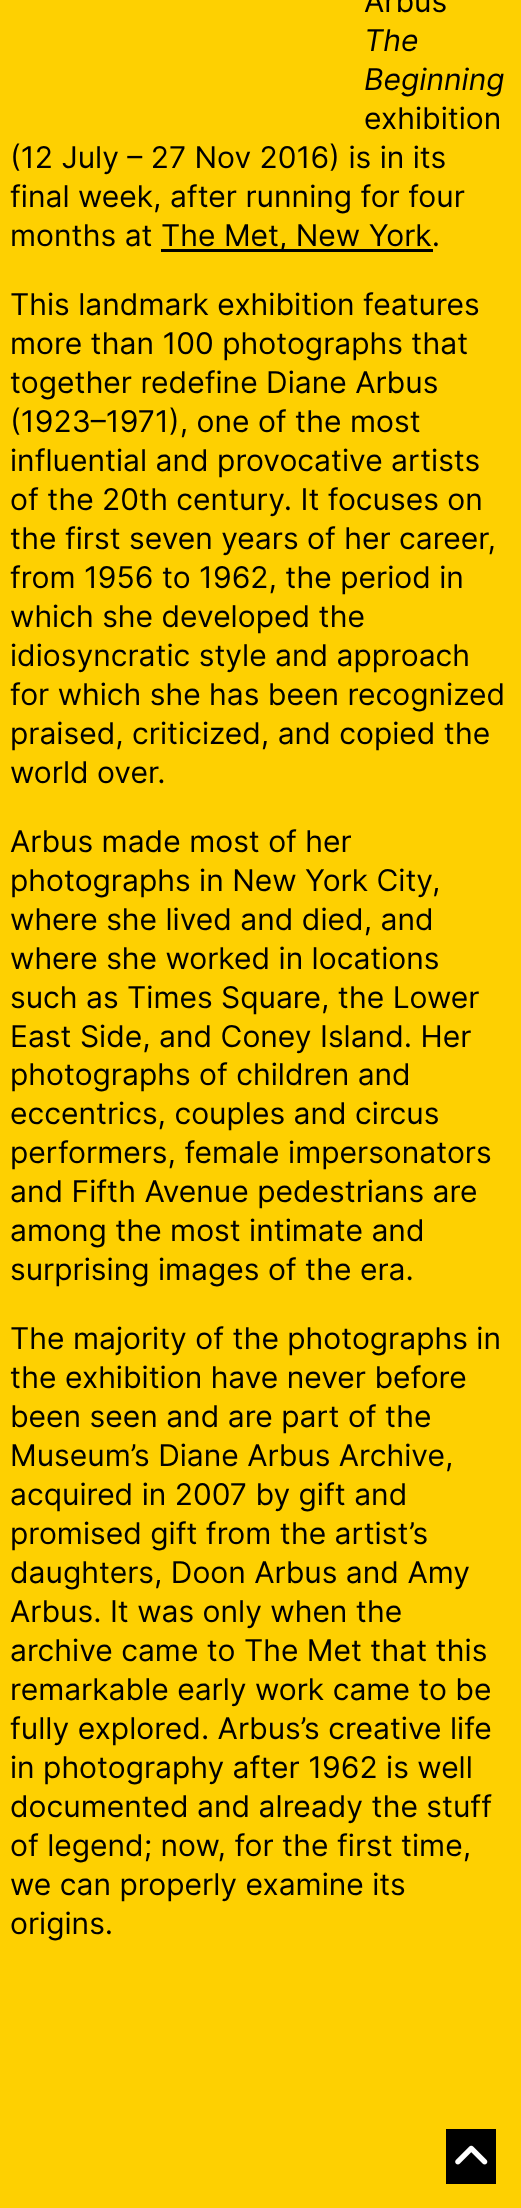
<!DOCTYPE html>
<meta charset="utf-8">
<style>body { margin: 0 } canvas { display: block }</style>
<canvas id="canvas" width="521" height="2208"></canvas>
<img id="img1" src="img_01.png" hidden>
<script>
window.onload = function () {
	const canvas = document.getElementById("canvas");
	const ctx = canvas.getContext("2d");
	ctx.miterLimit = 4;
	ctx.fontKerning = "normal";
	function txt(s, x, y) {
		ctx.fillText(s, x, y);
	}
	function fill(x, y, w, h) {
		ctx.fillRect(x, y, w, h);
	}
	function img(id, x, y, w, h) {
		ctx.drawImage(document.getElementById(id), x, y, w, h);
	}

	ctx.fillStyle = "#FED001";
	fill(0, 0, 521, 2208);
	ctx.fillStyle = "#000000";
	fill(161, 249, 272, 3);
	fill(446, 2129, 50, 55);
	img("img1", 455, 2145, 33, 20);
	ctx.font = "30px Inter";
	txt("Arbus", 364, 12);
	ctx.font = "italic 30px Inter";
	txt("The", 364, 51);
	txt("Beginning", 364, 90);
	ctx.font = "30px Inter";
	txt("exhibition", 364, 129);
	txt("(12 July – 27 Nov 2016) is in its", 10, 168);
	txt("final week, after running for four", 10, 207);
	txt("months at", 10, 246);
	txt("The Met, New York.", 161, 246);
	txt("This landmark exhibition features", 10, 315);
	txt("more than 100 photographs that", 10, 354);
	txt("together redefine Diane Arbus", 10, 393);
	txt("(1923–1971), one of the most", 10, 432);
	txt("influential and provocative artists", 10, 471);
	txt("of the 20th century. It focuses on", 10, 510);
	txt("the first seven years of her career,", 10, 549);
	txt("from 1956 to 1962, the period in", 10, 588);
	txt("which she developed the", 10, 627);
	txt("idiosyncratic style and approach", 10, 666);
	txt("for which she has been recognized", 10, 705);
	txt("praised, criticized, and copied the", 10, 744);
	txt("world over.", 10, 783);
	txt("Arbus made most of her", 10, 852);
	txt("photographs in New York City,", 10, 891);
	txt("where she lived and died, and", 10, 930);
	txt("where she worked in locations", 10, 969);
	txt("such as Times Square, the Lower", 10, 1008);
	txt("East Side, and Coney Island. Her", 10, 1047);
	txt("photographs of children and", 10, 1085);
	txt("eccentrics, couples and circus", 10, 1124);
	txt("performers, female impersonators", 10, 1163);
	txt("and Fifth Avenue pedestrians are", 10, 1202);
	txt("among the most intimate and", 10, 1241);
	txt("surprising images of the era.", 10, 1280);
	txt("The majority of the photographs in", 10, 1349);
	txt("the exhibition have never before", 10, 1388);
	txt("been seen and are part of the", 10, 1427);
	txt("Museum’s Diane Arbus Archive,", 10, 1466);
	txt("acquired in 2007 by gift and", 10, 1505);
	txt("promised gift from the artist’s", 10, 1544);
	txt("daughters, Doon Arbus and Amy", 10, 1583);
	txt("Arbus. It was only when the", 10, 1622);
	txt("archive came to The Met that this", 10, 1661);
	txt("remarkable early work came to be", 10, 1700);
	txt("fully explored. Arbus’s creative life", 10, 1739);
	txt("in photography after 1962 is well", 10, 1778);
	txt("documented and already the stuff", 10, 1817);
	txt("of legend; now, for the first time,", 10, 1856);
	txt("we can properly examine its", 10, 1895);
	txt("origins.", 10, 1934);
};
</script>
